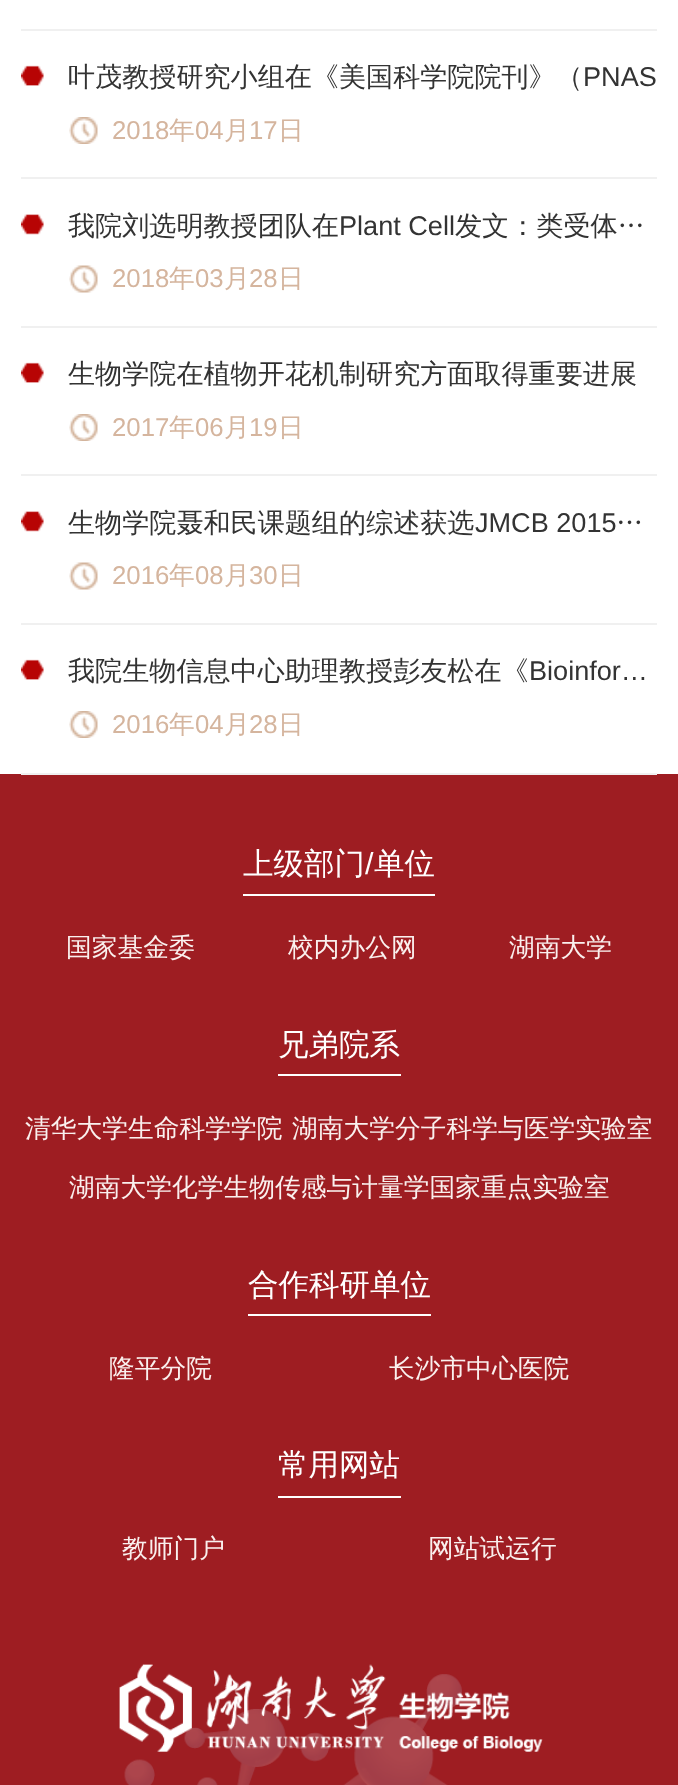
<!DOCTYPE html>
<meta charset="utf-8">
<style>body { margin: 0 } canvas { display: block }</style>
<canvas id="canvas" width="678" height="1785"></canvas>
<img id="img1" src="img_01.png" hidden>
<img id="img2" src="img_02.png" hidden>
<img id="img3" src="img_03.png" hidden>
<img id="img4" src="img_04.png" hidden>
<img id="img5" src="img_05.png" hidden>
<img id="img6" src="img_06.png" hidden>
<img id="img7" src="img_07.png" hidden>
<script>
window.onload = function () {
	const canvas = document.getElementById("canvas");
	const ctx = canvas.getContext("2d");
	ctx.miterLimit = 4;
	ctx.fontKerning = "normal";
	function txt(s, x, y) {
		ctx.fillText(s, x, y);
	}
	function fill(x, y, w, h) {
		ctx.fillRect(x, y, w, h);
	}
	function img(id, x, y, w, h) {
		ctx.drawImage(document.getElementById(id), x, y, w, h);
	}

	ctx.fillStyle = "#FFFFFF";
	fill(0, 0, 678, 1785);
	ctx.fillStyle = "#F0F0F0";
	fill(21, 29, 636, 2);
	fill(21, 177, 636, 2);
	img("img1", 21, 65, 23, 21);
	img("img2", 69, 117, 29, 27);
	fill(21, 326, 636, 2);
	img("img3", 21, 214, 23, 21);
	img("img4", 69, 265, 29, 28);
	fill(21, 474, 636, 2);
	img("img1", 21, 362, 23, 21);
	img("img2", 69, 414, 29, 27);
	fill(21, 623, 636, 2);
	img("img3", 21, 511, 23, 21);
	img("img5", 69, 562, 29, 28);
	ctx.fillStyle = "#9E1D22";
	fill(0, 774, 678, 1011);
	ctx.fillStyle = "#F0F0F0";
	fill(21, 773, 636, 2);
	img("img1", 21, 659, 23, 21);
	img("img2", 69, 711, 29, 27);
	img("img6", 124, 1674, 338, 111);
	ctx.fillStyle = "#FFFFFF";
	fill(243, 894, 192, 2);
	fill(278, 1074, 123, 2);
	fill(248, 1314, 183, 2);
	fill(278, 1496, 123, 2);
	img("img7", 119, 1664, 424, 88);
	ctx.font = "500 27.1px WenQuanYi Zen Hei";
	ctx.fillStyle = "#333333";
	txt("叶茂教授研究小组在《美国科学院院刊》（", 68, 86);
	ctx.font = "27.1px Liberation Sans";
	txt("PNAS", 583, 86);
	ctx.font = "25.75px Liberation Sans";
	ctx.fillStyle = "#D5B59E";
	txt("2018", 112, 139);
	ctx.font = "500 25.75px WenQuanYi Zen Hei";
	txt("年", 169, 139);
	ctx.font = "25.75px Liberation Sans";
	txt("04", 195, 139);
	ctx.font = "500 25.75px WenQuanYi Zen Hei";
	txt("月", 224, 139);
	ctx.font = "25.75px Liberation Sans";
	txt("17", 249, 139);
	ctx.font = "500 25.75px WenQuanYi Zen Hei";
	txt("日", 278, 139);
	ctx.font = "500 27.1px WenQuanYi Zen Hei";
	ctx.fillStyle = "#333333";
	txt("我院刘选明教授团队在", 68, 235);
	ctx.font = "27.1px Liberation Sans";
	txt("Plant Cell", 339, 235);
	ctx.font = "500 27.1px WenQuanYi Zen Hei";
	txt("发文：类受体…", 455, 235);
	ctx.font = "25.75px Liberation Sans";
	ctx.fillStyle = "#D5B59E";
	txt("2018", 112, 287);
	ctx.font = "500 25.75px WenQuanYi Zen Hei";
	txt("年", 169, 287);
	ctx.font = "25.75px Liberation Sans";
	txt("03", 195, 287);
	ctx.font = "500 25.75px WenQuanYi Zen Hei";
	txt("月", 224, 287);
	ctx.font = "25.75px Liberation Sans";
	txt("28", 249, 287);
	ctx.font = "500 25.75px WenQuanYi Zen Hei";
	txt("日", 278, 287);
	ctx.font = "500 27.1px WenQuanYi Zen Hei";
	ctx.fillStyle = "#333333";
	txt("生物学院在植物开花机制研究方面取得重要进展", 68, 383);
	ctx.font = "25.75px Liberation Sans";
	ctx.fillStyle = "#D5B59E";
	txt("2017", 112, 436);
	ctx.font = "500 25.75px WenQuanYi Zen Hei";
	txt("年", 169, 436);
	ctx.font = "25.75px Liberation Sans";
	txt("06", 195, 436);
	ctx.font = "500 25.75px WenQuanYi Zen Hei";
	txt("月", 224, 436);
	ctx.font = "25.75px Liberation Sans";
	txt("19", 249, 436);
	ctx.font = "500 25.75px WenQuanYi Zen Hei";
	txt("日", 278, 436);
	ctx.font = "500 27.1px WenQuanYi Zen Hei";
	ctx.fillStyle = "#333333";
	txt("生物学院聂和民课题组的综述获选", 68, 532);
	ctx.font = "27.1px Liberation Sans";
	txt("JMCB 2015", 475, 532);
	ctx.font = "500 27.1px WenQuanYi Zen Hei";
	txt("…", 616, 532);
	ctx.font = "25.75px Liberation Sans";
	ctx.fillStyle = "#D5B59E";
	txt("2016", 112, 584);
	ctx.font = "500 25.75px WenQuanYi Zen Hei";
	txt("年", 169, 584);
	ctx.font = "25.75px Liberation Sans";
	txt("08", 195, 584);
	ctx.font = "500 25.75px WenQuanYi Zen Hei";
	txt("月", 224, 584);
	ctx.font = "25.75px Liberation Sans";
	txt("30", 249, 584);
	ctx.font = "500 25.75px WenQuanYi Zen Hei";
	txt("日", 278, 584);
	ctx.font = "500 27.1px WenQuanYi Zen Hei";
	ctx.fillStyle = "#333333";
	txt("我院生物信息中心助理教授彭友松在《", 68, 680);
	ctx.font = "27.1px Liberation Sans";
	txt("Bioinfor…", 529, 680);
	ctx.font = "25.75px Liberation Sans";
	ctx.fillStyle = "#D5B59E";
	txt("2016", 112, 733);
	ctx.font = "500 25.75px WenQuanYi Zen Hei";
	txt("年", 169, 733);
	ctx.font = "25.75px Liberation Sans";
	txt("04", 195, 733);
	ctx.font = "500 25.75px WenQuanYi Zen Hei";
	txt("月", 224, 733);
	ctx.font = "25.75px Liberation Sans";
	txt("28", 249, 733);
	ctx.font = "500 25.75px WenQuanYi Zen Hei";
	txt("日", 278, 733);
	ctx.font = "500 30.5px WenQuanYi Zen Hei";
	ctx.fillStyle = "#FFFFFF";
	txt("上级部门", 243, 874);
	ctx.font = "30.5px Liberation Sans";
	txt("/", 365, 874);
	ctx.font = "500 30.5px WenQuanYi Zen Hei";
	txt("单位", 374, 874);
	ctx.font = "500 25.75px WenQuanYi Zen Hei";
	ctx.fillStyle = "#FAF0EE";
	txt("国家基金委", 66, 956);
	txt("校内办公网", 288, 956);
	txt("湖南大学", 509, 956);
	ctx.font = "500 30.5px WenQuanYi Zen Hei";
	ctx.fillStyle = "#FFFFFF";
	txt("兄弟院系", 278, 1055);
	ctx.font = "500 25.75px WenQuanYi Zen Hei";
	ctx.fillStyle = "#FAF0EE";
	txt("清华大学生命科学学院", 25, 1137);
	txt("湖南大学分子科学与医学实验室", 292, 1137);
	txt("湖南大学化学生物传感与计量学国家重点实验室", 69, 1196);
	ctx.font = "500 30.5px WenQuanYi Zen Hei";
	ctx.fillStyle = "#FFFFFF";
	txt("合作科研单位", 248, 1295);
	ctx.font = "500 25.75px WenQuanYi Zen Hei";
	ctx.fillStyle = "#FAF0EE";
	txt("隆平分院", 109, 1377);
	txt("长沙市中心医院", 389, 1377);
	ctx.font = "500 30.5px WenQuanYi Zen Hei";
	ctx.fillStyle = "#FFFFFF";
	txt("常用网站", 278, 1475);
	ctx.font = "500 25.75px WenQuanYi Zen Hei";
	ctx.fillStyle = "#FAF0EE";
	txt("教师门户", 122, 1557);
	txt("网站试运行", 428, 1557);
};
</script>
